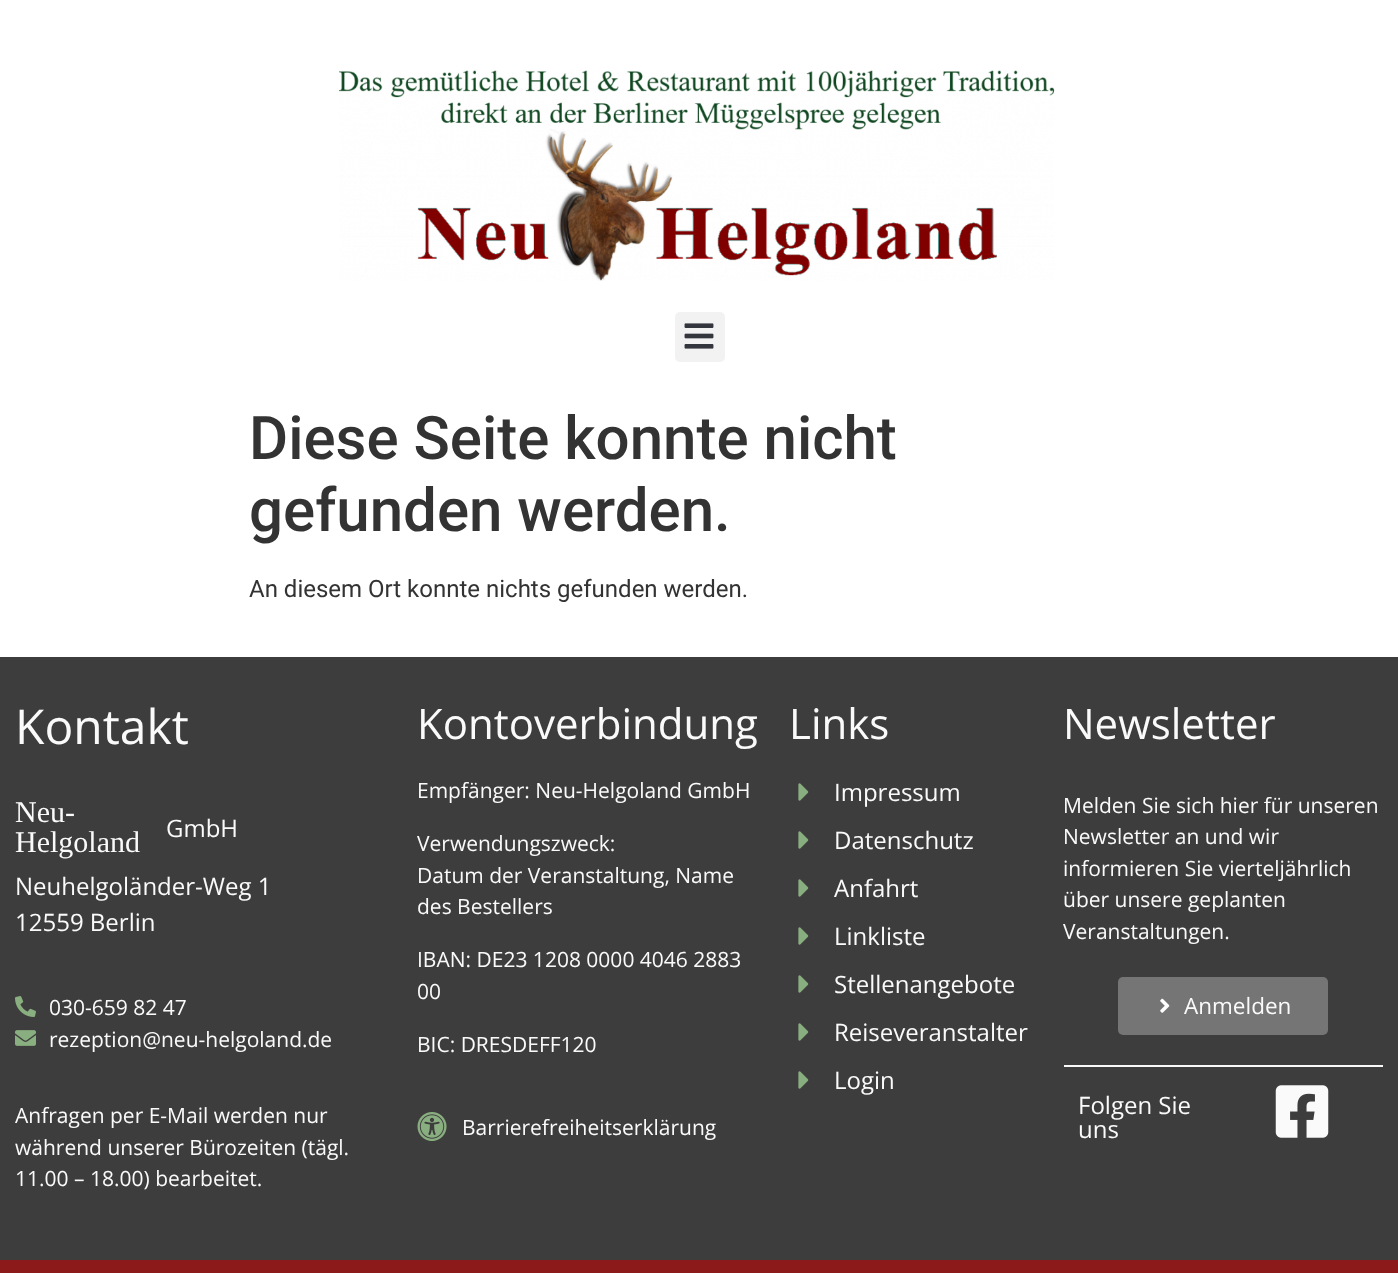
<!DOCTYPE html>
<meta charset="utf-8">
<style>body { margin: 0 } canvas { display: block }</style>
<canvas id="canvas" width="1398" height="1273"></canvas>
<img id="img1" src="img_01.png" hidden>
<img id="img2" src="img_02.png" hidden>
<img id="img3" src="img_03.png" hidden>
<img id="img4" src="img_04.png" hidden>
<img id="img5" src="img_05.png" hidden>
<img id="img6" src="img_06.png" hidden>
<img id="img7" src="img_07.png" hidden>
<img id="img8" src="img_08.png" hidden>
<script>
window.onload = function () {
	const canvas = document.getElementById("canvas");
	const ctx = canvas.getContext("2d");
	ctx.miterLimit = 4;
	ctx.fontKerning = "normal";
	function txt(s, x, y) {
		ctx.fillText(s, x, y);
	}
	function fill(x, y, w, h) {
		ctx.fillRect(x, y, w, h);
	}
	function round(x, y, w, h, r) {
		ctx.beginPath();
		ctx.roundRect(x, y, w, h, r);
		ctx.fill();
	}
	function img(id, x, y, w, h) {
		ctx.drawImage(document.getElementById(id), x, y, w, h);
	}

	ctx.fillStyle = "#FFFFFF";
	fill(0, 0, 1398, 1273);
	img("img1", 339, 70, 716, 211);
	ctx.fillStyle = "#F2F2F2";
	round(675, 312, 50, 50, 5);
	img("img2", 684, 323, 30, 26);
	ctx.fillStyle = "#3D3D3D";
	fill(0, 657, 1398, 603);
	img("img3", 15, 996, 21, 21);
	img("img4", 15, 1030, 21, 16);
	img("img5", 417, 1112, 30, 29);
	img("img6", 798, 783, 11, 18);
	img("img6", 798, 831, 11, 18);
	img("img6", 798, 879, 11, 18);
	img("img6", 798, 927, 11, 18);
	img("img6", 798, 975, 11, 18);
	img("img6", 798, 1023, 11, 18);
	img("img6", 798, 1071, 11, 18);
	ctx.fillStyle = "#757575";
	round(1118, 977, 210, 58, 5);
	img("img7", 1160, 998, 10, 15);
	ctx.fillStyle = "#FAFAFA";
	fill(1064, 1065, 319, 2);
	img("img8", 1275, 1085, 54, 53);
	ctx.fillStyle = "#8D1A1A";
	fill(0, 1260, 1398, 13);
	ctx.font = "500 60px Roboto";
	ctx.fillStyle = "#333333";
	txt("Diese Seite konnte nicht", 249, 459);
	txt("gefunden werden.", 249, 531);
	ctx.font = "24px Roboto";
	txt("An diesem Ort konnte nichts gefunden werden.", 249, 597);
	ctx.font = "48px Open Sans";
	ctx.fillStyle = "#FAFAFA";
	txt("Kontakt", 15, 744);
	ctx.font = "30px Liberation Serif";
	txt("Neu-", 15, 822);
	txt("Helgoland", 15, 852);
	ctx.font = "24px Open Sans";
	txt("GmbH", 166, 837);
	txt("Neuhelgoländer-Weg 1", 15, 895);
	txt("12559 Berlin", 15, 931);
	ctx.font = "21px Open Sans";
	txt("030-659 82 47", 49, 1015);
	txt("rezeption@neu-helgoland.de", 49, 1047);
	txt("Anfragen per E-Mail werden nur", 15, 1123);
	txt("während unserer Bürozeiten (tägl.", 15, 1155);
	txt("11.00 – 18.00) bearbeitet.", 15, 1186);
	ctx.font = "42px Open Sans";
	txt("Kontoverbindung", 417, 739);
	ctx.font = "21px Open Sans";
	txt("Empfänger: Neu-Helgoland GmbH", 417, 798);
	txt("Verwendungszweck:", 417, 851);
	txt("Datum der Veranstaltung, Name", 417, 883);
	txt("des Bestellers", 417, 914);
	txt("IBAN: DE23 1208 0000 4046 2883", 417, 967);
	txt("00", 417, 999);
	txt("BIC: DRESDEFF120", 417, 1052);
	txt("Barrierefreiheitserklärung", 462, 1135);
	ctx.font = "42px Open Sans";
	txt("Links", 789, 739);
	ctx.font = "24px Open Sans";
	txt("Impressum", 834, 801);
	txt("Datenschutz", 834, 849);
	txt("Anfahrt", 834, 897);
	txt("Linkliste", 834, 945);
	txt("Stellenangebote", 834, 993);
	txt("Reiseveranstalter", 834, 1041);
	txt("Login", 834, 1089);
	ctx.font = "42px Open Sans";
	txt("Newsletter", 1063, 739);
	ctx.font = "21px Open Sans";
	txt("Melden Sie sich hier für unseren", 1063, 813);
	txt("Newsletter an und wir", 1063, 844);
	txt("informieren Sie vierteljährlich", 1063, 876);
	txt("über unsere geplanten", 1063, 907);
	txt("Veranstaltungen.", 1063, 939);
	ctx.font = "22.5px Open Sans";
	txt("Anmelden", 1184, 1014);
	ctx.font = "24px Open Sans";
	txt("Folgen Sie", 1078, 1114);
	txt("uns", 1078, 1138);
};
</script>
